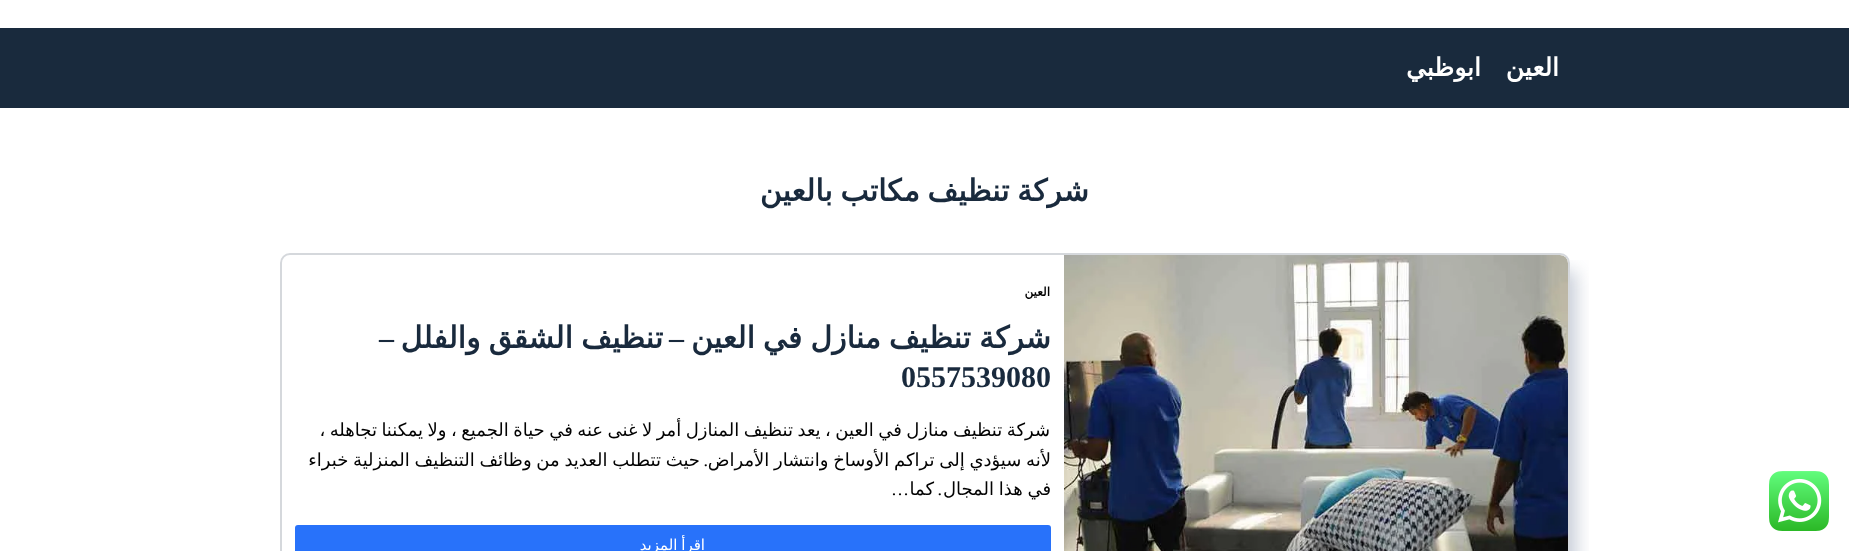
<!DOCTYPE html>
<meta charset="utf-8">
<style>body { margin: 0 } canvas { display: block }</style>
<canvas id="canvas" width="1849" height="551"></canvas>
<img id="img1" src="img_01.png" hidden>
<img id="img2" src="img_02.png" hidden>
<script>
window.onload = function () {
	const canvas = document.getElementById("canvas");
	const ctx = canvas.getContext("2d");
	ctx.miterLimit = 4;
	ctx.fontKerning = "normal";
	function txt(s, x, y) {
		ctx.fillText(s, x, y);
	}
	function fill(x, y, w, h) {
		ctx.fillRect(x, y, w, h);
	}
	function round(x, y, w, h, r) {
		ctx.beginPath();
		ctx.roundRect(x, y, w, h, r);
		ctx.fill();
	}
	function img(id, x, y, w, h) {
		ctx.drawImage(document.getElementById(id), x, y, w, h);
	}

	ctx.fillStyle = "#FFFFFF";
	fill(0, 0, 1849, 551);
	img("img1", 1769, 471, 60, 60);
	ctx.fillStyle = "#192A3D";
	fill(0, 28, 1849, 80);
	ctx.save();
	ctx.beginPath();
	ctx.rect(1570, 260, 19, 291);
	ctx.clip();
	ctx.fillStyle = "rgba(35, 57, 102, 0.26)";
	ctx.filter = "blur(9px)";
	ctx.beginPath();
	ctx.roundRect(298, 271, 1278, 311, 4);
	ctx.fill();
	ctx.filter = "none";
	ctx.restore();
	ctx.beginPath();
	ctx.roundRect(281, 254, 1288, 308, 9);
	ctx.strokeStyle = "#D5D8DC";
	ctx.lineWidth = 2;
	ctx.stroke();
	img("img2", 1064, 255, 504, 296);
	ctx.fillStyle = "#2872FA";
	round(295, 525, 756, 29, 3);
	ctx.direction = "rtl";
	ctx.font = "bold 25px DejaVu Sans";
	ctx.fillStyle = "#FFFFFF";
	txt("العين", 1559, 76);
	txt("ابوظبي", 1481, 76);
	ctx.wordSpacing = "-2px";
	ctx.font = "bold 30px DejaVu Sans";
	ctx.fillStyle = "#192A3D";
	txt("شركة تنظيف مكاتب بالعين", 1089, 201);
	ctx.wordSpacing = "0px";
	ctx.font = "bold 12px DejaVu Sans";
	ctx.fillStyle = "#020202";
	txt("العين", 1050, 296);
	ctx.wordSpacing = "-1.5px";
	ctx.font = "bold 30px DejaVu Sans";
	ctx.fillStyle = "#192A3D";
	txt("شركة تنظيف منازل في العين", 1051, 348);
	ctx.wordSpacing = "0px";
	ctx.font = "bold 30px Liberation Serif";
	txt("–", 684, 348);
	ctx.wordSpacing = "-1.5px";
	ctx.font = "bold 30px DejaVu Sans";
	txt("تنظيف الشقق والفلل", 663, 348);
	ctx.wordSpacing = "0px";
	ctx.font = "bold 30px Liberation Serif";
	txt("–", 394, 348);
	ctx.direction = "ltr";
	txt("0557539080", 901, 387);
	ctx.wordSpacing = "-1.25px";
	ctx.direction = "rtl";
	ctx.font = "18px DejaVu Sans";
	ctx.fillStyle = "#020202";
	txt("شركة تنظيف منازل في العين ، يعد تنظيف المنازل أمر لا غنى عنه في حياة الجميع ، ولا يمكننا تجاهله ،", 1050, 436);
	ctx.wordSpacing = "-1px";
	txt("لأنه سيؤدي إلى تراكم الأوساخ وانتشار الأمراض", 1051, 466);
	txt("حيث تتطلب العديد من وظائف التنظيف المنزلية خبراء", 700, 466);
	ctx.wordSpacing = "0px";
	ctx.font = "18px Liberation Serif";
	txt(".", 708, 466);
	ctx.wordSpacing = "-1px";
	ctx.font = "18px DejaVu Sans";
	txt("في هذا المجال", 1051, 495);
	ctx.wordSpacing = "0px";
	ctx.font = "18px Liberation Serif";
	txt(".", 942, 495);
	ctx.font = "18px DejaVu Sans";
	txt("كما", 934, 495);
	ctx.font = "18px Liberation Serif";
	txt("…", 909, 495);
	ctx.wordSpacing = "-1px";
	ctx.font = "15px DejaVu Sans";
	ctx.fillStyle = "#FFFFFF";
	txt("اقرأ المزيد", 705, 550);
};
</script>
